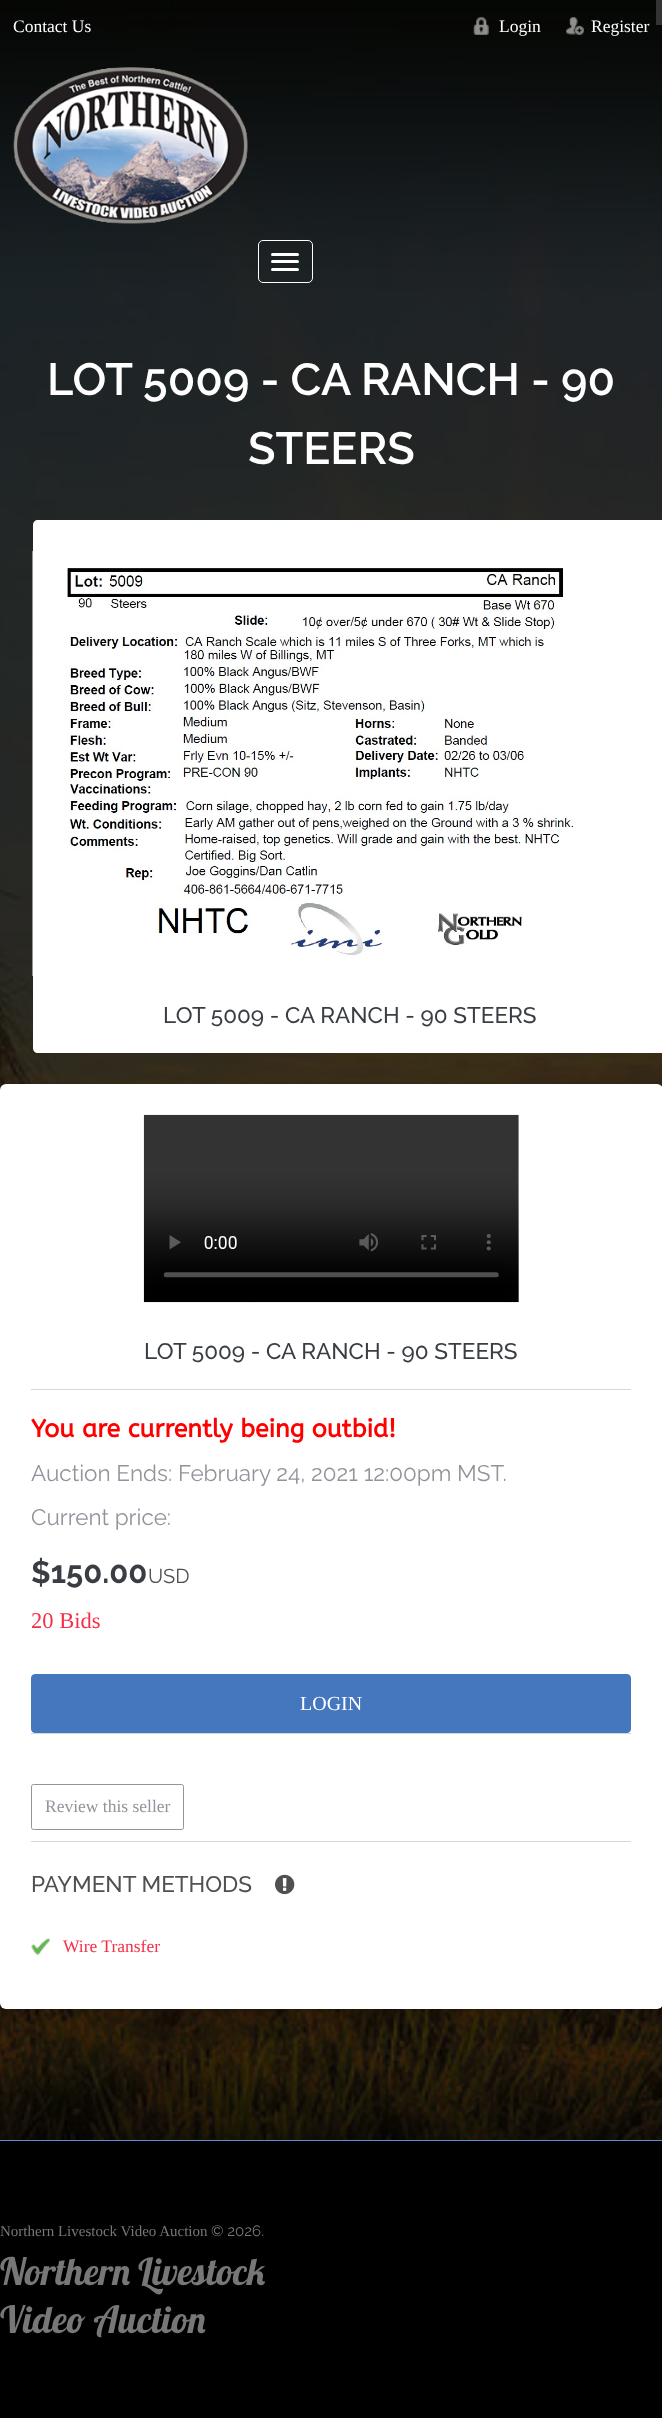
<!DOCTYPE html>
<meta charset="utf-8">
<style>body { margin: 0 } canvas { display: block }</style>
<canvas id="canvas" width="662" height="2418"></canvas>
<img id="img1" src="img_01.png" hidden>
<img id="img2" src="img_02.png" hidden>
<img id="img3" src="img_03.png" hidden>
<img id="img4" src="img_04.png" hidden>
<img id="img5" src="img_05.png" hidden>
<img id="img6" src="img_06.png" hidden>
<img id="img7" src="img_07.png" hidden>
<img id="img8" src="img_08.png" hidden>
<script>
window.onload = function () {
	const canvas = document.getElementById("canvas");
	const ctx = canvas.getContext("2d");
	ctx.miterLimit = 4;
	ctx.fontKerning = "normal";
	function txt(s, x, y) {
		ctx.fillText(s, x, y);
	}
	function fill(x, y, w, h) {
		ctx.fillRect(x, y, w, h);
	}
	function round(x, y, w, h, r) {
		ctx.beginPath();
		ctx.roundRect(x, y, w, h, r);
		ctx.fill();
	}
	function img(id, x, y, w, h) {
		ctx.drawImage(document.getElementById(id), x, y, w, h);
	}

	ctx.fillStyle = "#FFFFFF";
	fill(0, 0, 662, 2418);
	img("img1", 0, 0, 662, 2140);
	ctx.fillStyle = "#333333";
	fill(656, 0, 6, 25);
	img("img2", 473, 17, 16, 18);
	img("img3", 566, 17, 18, 18);
	img("img4", 13, 67, 235, 157);
	ctx.beginPath();
	ctx.roundRect(258.5, 240.5, 54, 42, 4.5);
	ctx.strokeStyle = "#FFFFFF";
	ctx.stroke();
	ctx.fillStyle = "#FFFFFF";
	round(271, 253, 28, 3, 1.5);
	round(271, 260, 28, 3, 1.5);
	round(271, 268, 28, 3, 1.5);
	ctx.beginPath();
	ctx.moveTo(38, 520);
	ctx.lineTo(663, 520);
	ctx.lineTo(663, 1053);
	ctx.lineTo(38, 1053);
	ctx.bezierCurveTo(35, 1053, 33, 1051, 33, 1048);
	ctx.lineTo(33, 525);
	ctx.bezierCurveTo(33, 522, 35, 520, 38, 520);
	ctx.closePath();
	ctx.fill();
	img("img5", 32, 551, 545, 425);
	ctx.fillStyle = "rgba(0, 0, 0, 0.16)";
	ctx.filter = "blur(2.5px)";
	ctx.beginPath();
	ctx.roundRect(0, 1086, 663, 925, 6);
	ctx.fill();
	ctx.filter = "none";
	ctx.fillStyle = "#FFFFFF";
	round(0, 1084, 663, 925, 6);
	img("img6", 143, 1114, 376, 189);
	ctx.fillStyle = "#D5D9DF";
	fill(31, 1389, 600, 1);
	ctx.fillStyle = "#4477BD";
	ctx.beginPath();
	ctx.roundRect(31.5, 1674.5, 599, 58, 3.5);
	ctx.fill();
	ctx.strokeStyle = "#4477BD";
	ctx.stroke();
	ctx.fillStyle = "#D5D9DF";
	fill(31, 1733, 600, 1);
	ctx.beginPath();
	ctx.roundRect(31.5, 1784.5, 152, 45, 2);
	ctx.strokeStyle = "#92949C";
	ctx.stroke();
	fill(31, 1841, 600, 1);
	img("img7", 275, 1874, 20, 21);
	img("img8", 31, 1938, 19, 17);
	ctx.fillStyle = "#000000";
	fill(0, 2141, 662, 277);
	ctx.fillStyle = "#5C90D6";
	fill(0, 2140, 662, 1);
	ctx.font = "17.5px Liberation Serif";
	ctx.fillStyle = "#FFFFFF";
	txt("Contact Us", 13, 32);
	txt("Login", 499, 32);
	txt("Register", 591, 32);
	ctx.font = "600 45px Raleway";
	txt("LOT 5009 - CA RANCH - 90", 47, 395);
	txt("STEERS", 248, 464);
	ctx.font = "500 22.5px Raleway";
	ctx.fillStyle = "#3A3E44";
	txt("LOT 5009 - CA RANCH - 90 STEERS", 163, 1023);
	txt("LOT 5009 - CA RANCH - 90 STEERS", 144, 1359);
	ctx.font = "bold 25px ABeeZee";
	ctx.fillStyle = "#FF0000";
	txt("You are currently being outbid!", 31, 1437);
	ctx.font = "22.5px Raleway";
	ctx.fillStyle = "#92949C";
	txt("Auction Ends: February 24, 2021 12:00pm MST.", 31, 1481);
	txt("Current price:", 31, 1525);
	ctx.font = "bold 31px Raleway";
	ctx.fillStyle = "#3A3E44";
	txt("$150.00", 31, 1583);
	ctx.font = "20px Raleway";
	ctx.fillStyle = "#505050";
	txt("USD", 148, 1583);
	ctx.font = "22.5px Liberation Serif";
	ctx.fillStyle = "#F62E46";
	txt("20 Bids", 31, 1628);
	ctx.font = "20px Liberation Serif";
	ctx.fillStyle = "#FFFFFF";
	txt("LOGIN", 300, 1710);
	ctx.font = "17.5px Liberation Serif";
	ctx.fillStyle = "#92949C";
	txt("Review this seller", 45, 1812);
	ctx.font = "500 22.5px Raleway";
	ctx.fillStyle = "#505050";
	txt("PAYMENT METHODS", 31, 1892);
	ctx.font = "17.5px Liberation Serif";
	ctx.fillStyle = "#F62E46";
	txt("Wire Transfer", 63, 1952);
	ctx.font = "15px Liberation Serif";
	ctx.fillStyle = "#777777";
	txt("Northern Livestock Video Auction", 0, 2236);
	ctx.font = "15px Raleway";
	txt("© 2026.", 211, 2236);
	ctx.font = "37.5px Lobster";
	txt("Northern Livestock", 0, 2285);
	txt("Video Auction", 0, 2333);
};
</script>
